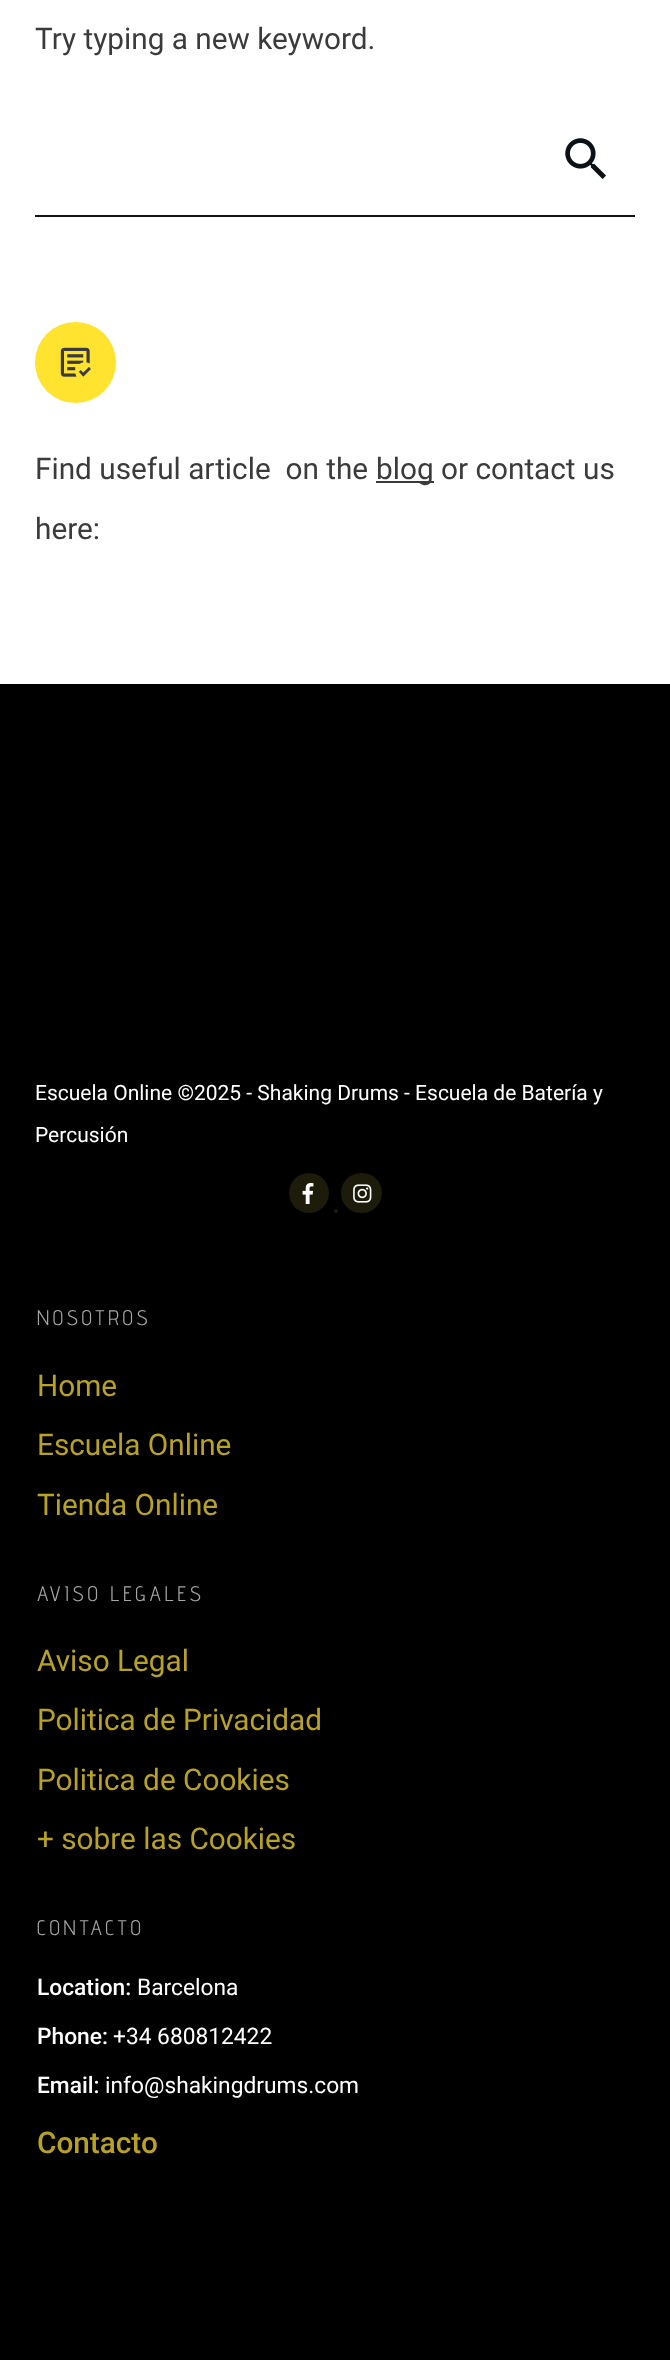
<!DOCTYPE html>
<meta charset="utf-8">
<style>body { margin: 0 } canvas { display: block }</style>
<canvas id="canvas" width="670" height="2360"></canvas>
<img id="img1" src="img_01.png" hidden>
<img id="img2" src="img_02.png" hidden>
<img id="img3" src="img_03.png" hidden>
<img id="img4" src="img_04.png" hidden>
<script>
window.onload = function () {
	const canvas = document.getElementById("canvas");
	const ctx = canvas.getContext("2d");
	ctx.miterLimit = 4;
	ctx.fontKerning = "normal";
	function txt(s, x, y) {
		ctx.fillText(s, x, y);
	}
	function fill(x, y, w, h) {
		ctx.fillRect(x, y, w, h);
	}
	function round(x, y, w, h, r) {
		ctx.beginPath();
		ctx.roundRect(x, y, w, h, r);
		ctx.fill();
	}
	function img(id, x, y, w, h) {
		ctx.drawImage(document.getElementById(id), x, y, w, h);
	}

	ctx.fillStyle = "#FFFFFF";
	fill(0, 0, 670, 2360);
	ctx.fillStyle = "#141414";
	fill(35, 215, 600, 2);
	img("img1", 565, 138, 41, 41);
	ctx.fillStyle = "#FFE32E";
	ctx.beginPath();
	ctx.arc(75.5, 362.5, 40.5, 0, Math.PI * 2);
	ctx.fill();
	img("img2", 60, 347, 31, 30);
	ctx.fillStyle = "#3B3B3B";
	fill(376, 481, 58, 2);
	ctx.fillStyle = "#000000";
	fill(0, 684, 670, 1676);
	ctx.fillStyle = "#1D1B0A";
	ctx.beginPath();
	ctx.arc(309, 1193, 20, 0, Math.PI * 2);
	ctx.fill();
	img("img3", 302, 1183, 12, 21);
	ctx.beginPath();
	ctx.arc(336, 1211, 2, 0, Math.PI * 2);
	ctx.fill();
	round(341, 1173, 41, 40, 20);
	img("img4", 353, 1184, 19, 19);
	ctx.font = "29.75px Roboto";
	ctx.fillStyle = "#3B3B3B";
	txt("Try typing a new keyword.", 35, 49);
	txt("Find useful article  on the", 35, 479);
	txt("blog or contact us", 376, 479);
	txt("here:", 35, 539);
	ctx.font = "21px Roboto";
	ctx.fillStyle = "#FFFFFF";
	txt("Escuela Online ©2025 - Shaking Drums - Escuela de Batería y", 35, 1100);
	txt("Percusión", 35, 1142);
	ctx.letterSpacing = "3.5px";
	ctx.font = "21px Advent Pro";
	ctx.fillStyle = "#A6A6A6";
	txt("NOSOTROS", 37, 1325);
	ctx.letterSpacing = "0px";
	ctx.font = "29.75px Roboto";
	ctx.fillStyle = "#B8A224";
	txt("Home", 37, 1396);
	txt("Escuela Online", 37, 1455);
	txt("Tienda Online", 37, 1515);
	ctx.letterSpacing = "3.5px";
	ctx.font = "21px Advent Pro";
	ctx.fillStyle = "#A6A6A6";
	txt("AVISO LEGALES", 37, 1601);
	ctx.letterSpacing = "0px";
	ctx.font = "29.75px Roboto";
	ctx.fillStyle = "#B8A224";
	txt("Aviso Legal", 37, 1671);
	txt("Politica de Privacidad", 37, 1730);
	txt("Politica de Cookies", 37, 1790);
	txt("+ sobre las Cookies", 37, 1849);
	ctx.letterSpacing = "3.5px";
	ctx.font = "21px Advent Pro";
	ctx.fillStyle = "#A6A6A6";
	txt("CONTACTO", 37, 1935);
	ctx.letterSpacing = "0px";
	ctx.font = "500 22.75px Roboto";
	ctx.fillStyle = "#FFFFFF";
	txt("Location:", 37, 1995);
	ctx.font = "22.75px Roboto";
	txt("Barcelona", 137, 1995);
	ctx.font = "500 22.75px Roboto";
	txt("Phone:", 37, 2044);
	ctx.font = "22.75px Roboto";
	txt("+34 680812422", 113, 2044);
	ctx.font = "500 22.75px Roboto";
	txt("Email:", 37, 2093);
	ctx.font = "22.75px Roboto";
	txt("info@shakingdrums.com", 105, 2093);
	ctx.font = "500 29.75px Roboto";
	ctx.fillStyle = "#B8A224";
	txt("Contacto", 37, 2153);
};
</script>
